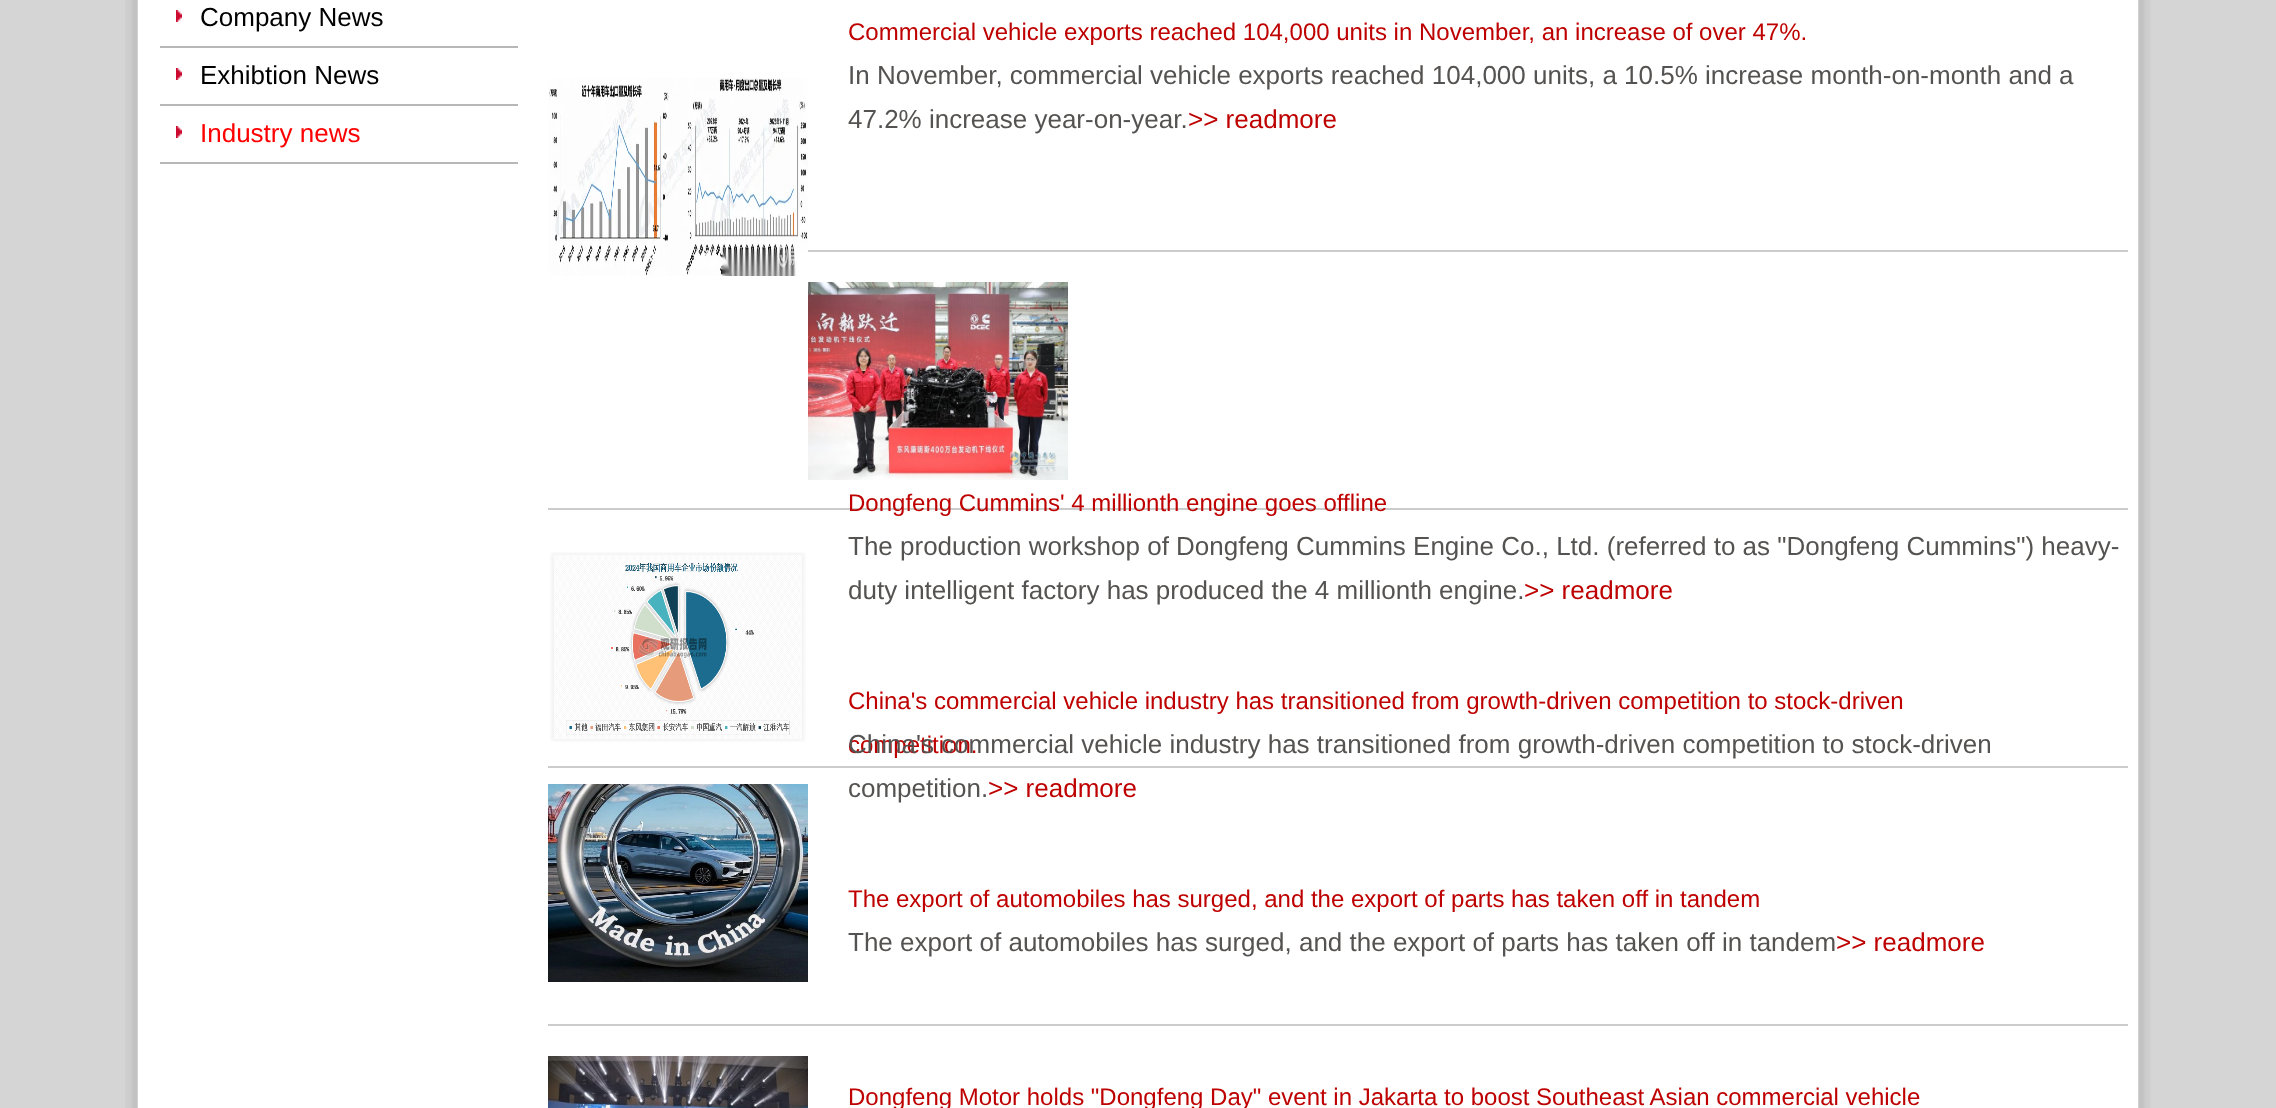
<!DOCTYPE html>
<meta charset="utf-8">
<style>body { margin: 0 } canvas { display: block }</style>
<canvas id="canvas" width="2276" height="1108"></canvas>
<img id="img1" src="img_01.png" hidden>
<img id="img2" src="img_02.png" hidden>
<img id="img3" src="img_03.png" hidden>
<img id="img4" src="img_04.png" hidden>
<img id="img5" src="img_05.png" hidden>
<img id="img6" src="img_06.png" hidden>
<img id="img7" src="img_07.png" hidden>
<script>
window.onload = function () {
	const canvas = document.getElementById("canvas");
	const ctx = canvas.getContext("2d");
	ctx.miterLimit = 4;
	ctx.fontKerning = "normal";
	function txt(s, x, y) {
		ctx.fillText(s, x, y);
	}
	function fill(x, y, w, h) {
		ctx.fillRect(x, y, w, h);
	}
	function img(id, x, y, w, h) {
		ctx.drawImage(document.getElementById(id), x, y, w, h);
	}

	ctx.fillStyle = "#D5D5D5";
	fill(0, 0, 2276, 1108);
	img("img1", 125, 0, 2026, 1108);
	ctx.fillStyle = "#FFFFFF";
	fill(138, 0, 2000, 1108);
	img("img2", 176, 10, 6, 12);
	ctx.fillStyle = "#B7B7B7";
	fill(160, 46, 358, 2);
	img("img2", 176, 68, 6, 12);
	fill(160, 104, 358, 2);
	img("img2", 176, 126, 6, 12);
	fill(160, 162, 358, 2);
	ctx.fillStyle = "#CCCCCC";
	fill(808, 250, 1320, 2);
	img("img3", 548, 78, 260, 198);
	fill(548, 508, 1580, 2);
	img("img4", 808, 282, 260, 198);
	fill(548, 766, 1580, 2);
	img("img5", 550, 552, 256, 190);
	fill(548, 1024, 1580, 2);
	img("img6", 548, 784, 260, 198);
	img("img7", 548, 1056, 260, 52);
	ctx.font = "26px Liberation Sans";
	ctx.fillStyle = "#000000";
	txt("Company News", 200, 26);
	txt("Exhibtion News", 200, 84);
	ctx.fillStyle = "#FF0000";
	txt("Industry news", 200, 142);
	ctx.font = "24px Liberation Sans";
	ctx.fillStyle = "#BE0000";
	txt("Commercial vehicle exports reached 104,000 units in November, an increase of over 47%.", 848, 40);
	ctx.font = "26px Liberation Sans";
	ctx.fillStyle = "#555351";
	txt("In November, commercial vehicle exports reached 104,000 units, a 10.5% increase month-on-month and a", 848, 84);
	txt("47.2% increase year-on-year.", 848, 128);
	ctx.fillStyle = "#BE0000";
	txt(">> readmore", 1188, 128);
	ctx.font = "24px Liberation Sans";
	txt("Dongfeng Cummins' 4 millionth engine goes offline", 848, 511);
	ctx.font = "26px Liberation Sans";
	ctx.fillStyle = "#555351";
	txt("The production workshop of Dongfeng Cummins Engine Co., Ltd. (referred to as \"Dongfeng Cummins\") heavy-", 848, 555);
	txt("duty intelligent factory has produced the 4 millionth engine.", 848, 599);
	ctx.fillStyle = "#BE0000";
	txt(">> readmore", 1524, 599);
	ctx.font = "24px Liberation Sans";
	txt("China's commercial vehicle industry has transitioned from growth-driven competition to stock-driven", 848, 709);
	txt("competition.", 848, 753);
	ctx.font = "26px Liberation Sans";
	ctx.fillStyle = "#555351";
	txt("China's commercial vehicle industry has transitioned from growth-driven competition to stock-driven", 848, 753);
	txt("competition.", 848, 797);
	ctx.fillStyle = "#BE0000";
	txt(">> readmore", 988, 797);
	ctx.font = "24px Liberation Sans";
	txt("The export of automobiles has surged, and the export of parts has taken off in tandem", 848, 907);
	ctx.font = "26px Liberation Sans";
	ctx.fillStyle = "#555351";
	txt("The export of automobiles has surged, and the export of parts has taken off in tandem", 848, 951);
	ctx.fillStyle = "#BE0000";
	txt(">> readmore", 1836, 951);
	ctx.font = "24px Liberation Sans";
	txt("Dongfeng Motor holds \"Dongfeng Day\" event in Jakarta to boost Southeast Asian commercial vehicle", 848, 1105);
};
</script>
